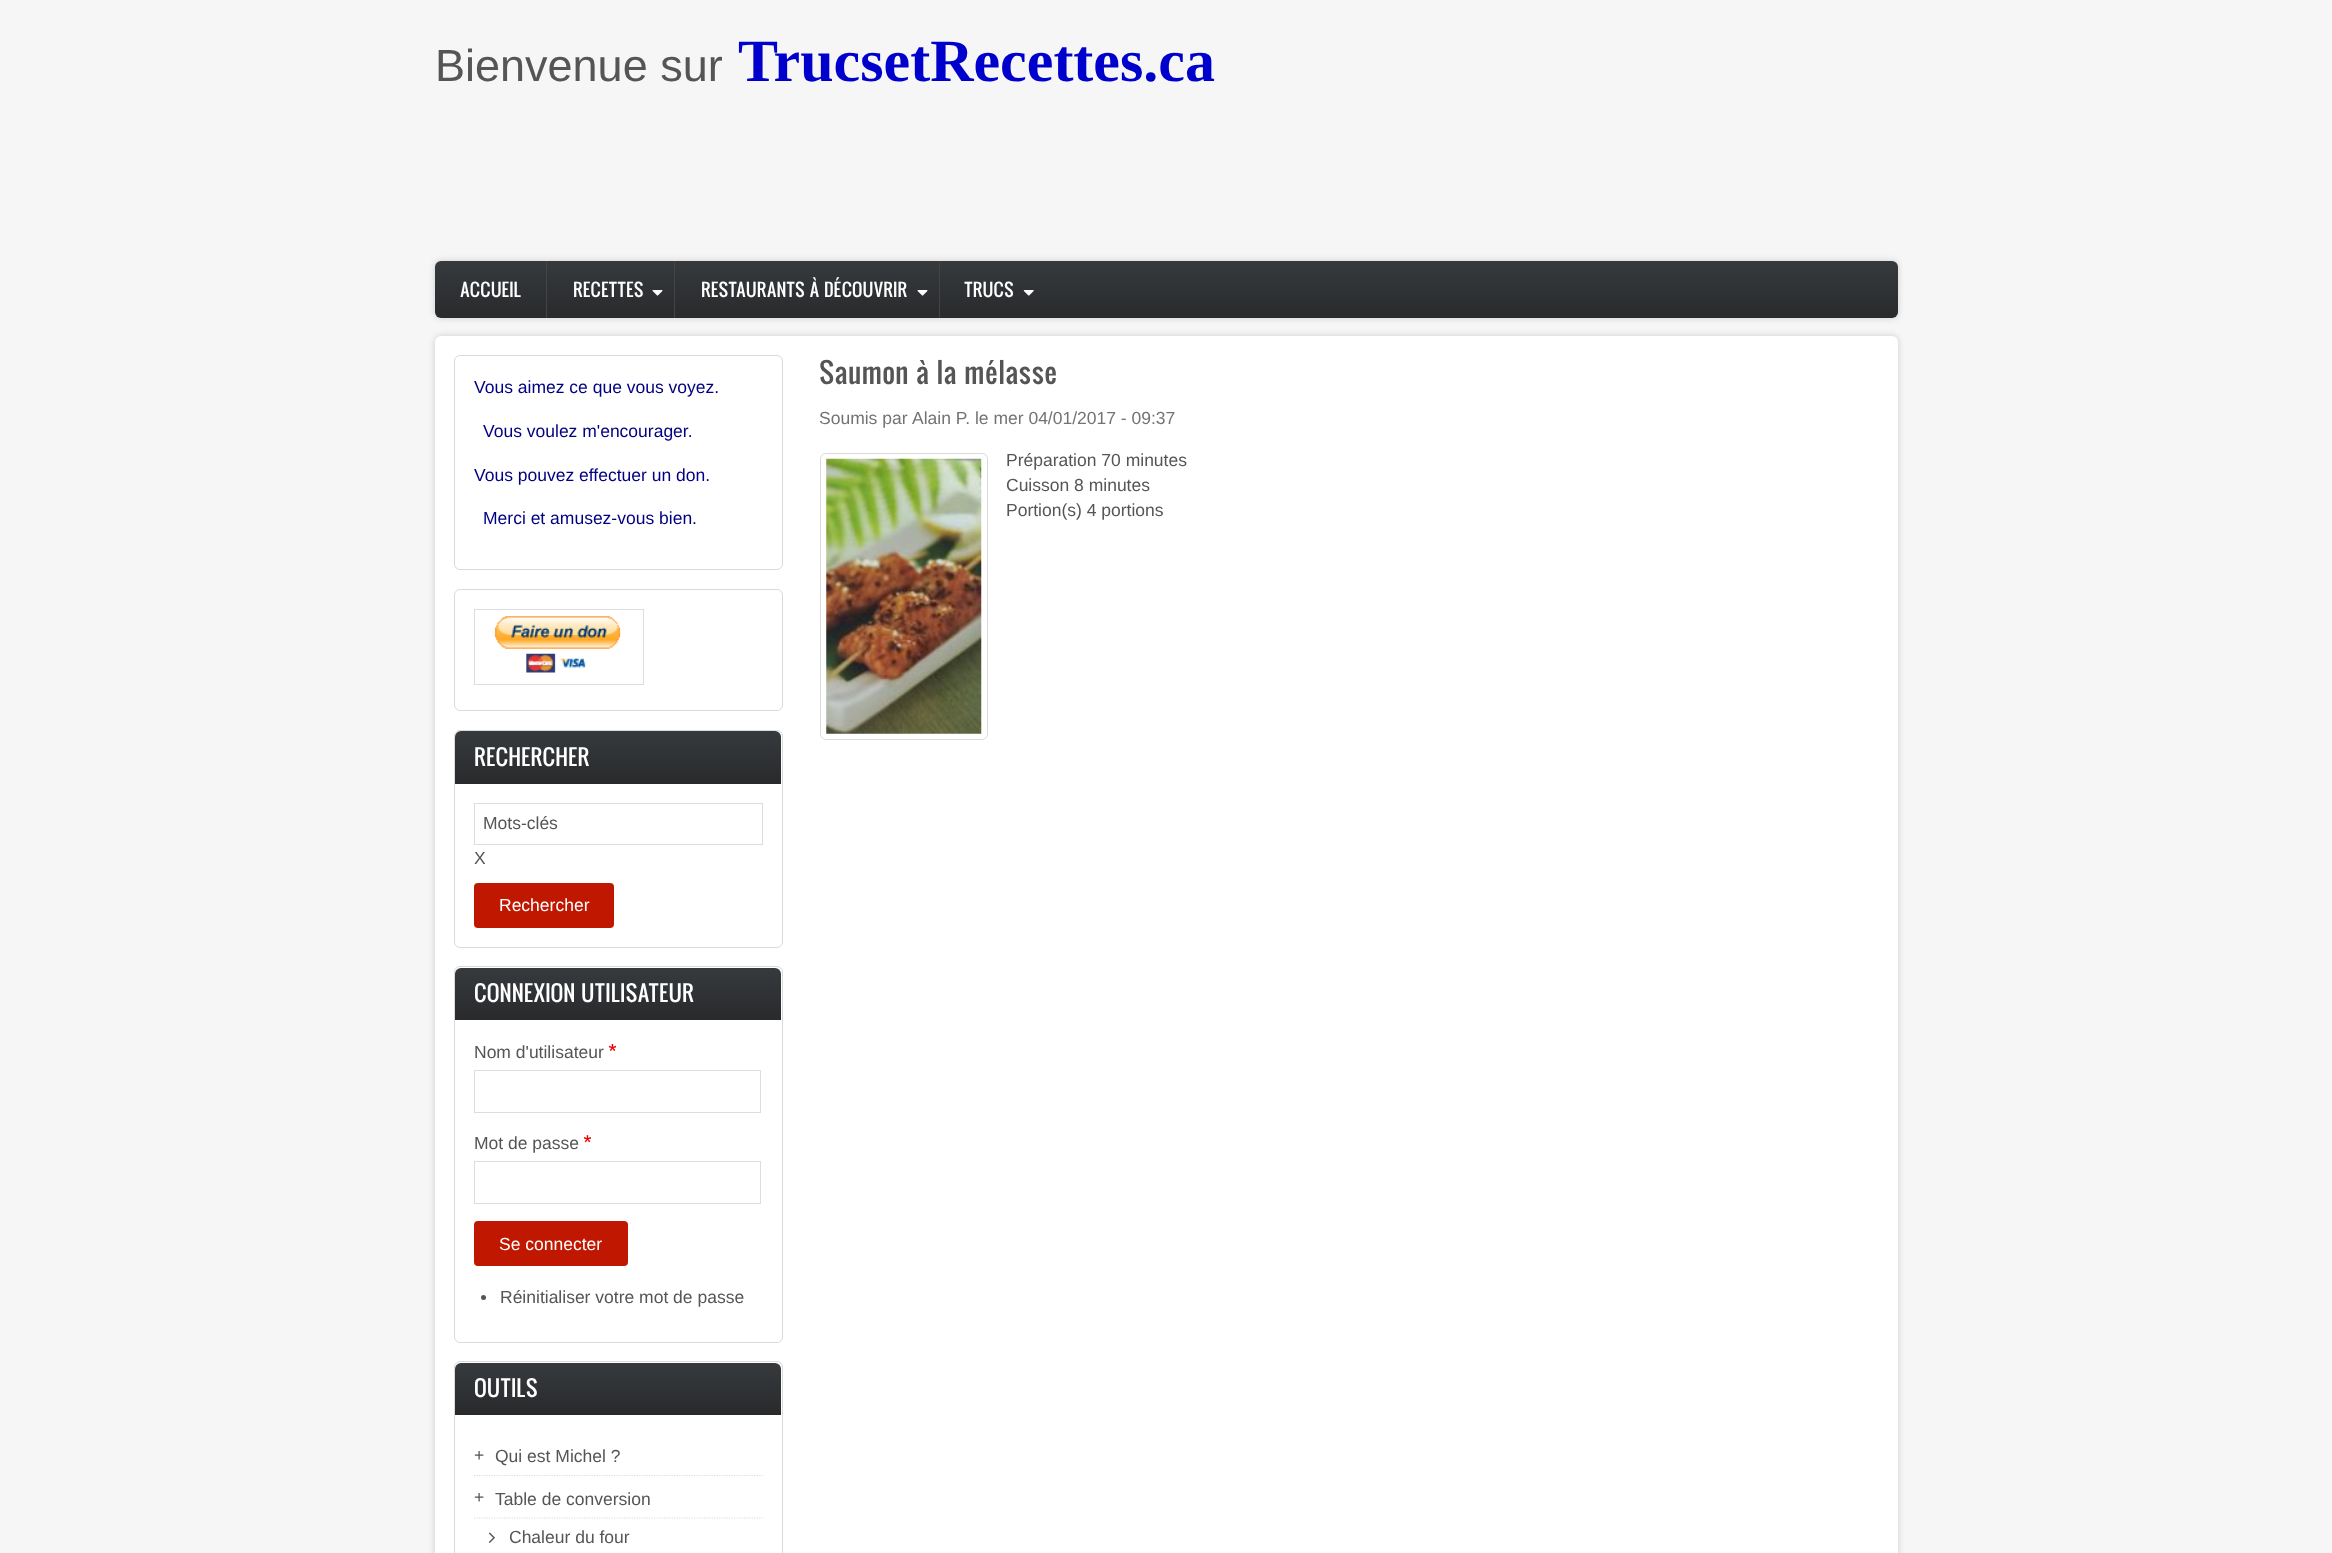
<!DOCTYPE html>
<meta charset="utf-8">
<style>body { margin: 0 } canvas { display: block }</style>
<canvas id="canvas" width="2332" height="1553"></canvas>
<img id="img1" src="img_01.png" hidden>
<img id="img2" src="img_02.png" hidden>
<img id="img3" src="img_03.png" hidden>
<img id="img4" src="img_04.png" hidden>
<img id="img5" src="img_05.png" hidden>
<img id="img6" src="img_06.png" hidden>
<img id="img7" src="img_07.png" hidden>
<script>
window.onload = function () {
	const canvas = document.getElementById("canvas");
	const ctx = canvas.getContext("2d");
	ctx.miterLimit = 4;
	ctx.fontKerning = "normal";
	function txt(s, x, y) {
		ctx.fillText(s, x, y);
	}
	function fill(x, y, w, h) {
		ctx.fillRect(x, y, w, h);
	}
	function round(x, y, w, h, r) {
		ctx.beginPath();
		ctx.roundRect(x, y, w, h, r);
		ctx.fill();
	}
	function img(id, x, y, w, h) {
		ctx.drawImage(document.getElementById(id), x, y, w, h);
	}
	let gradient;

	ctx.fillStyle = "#F6F6F6";
	fill(0, 0, 2332, 1553);
	ctx.fillStyle = "#CCCCCC";
	ctx.filter = "blur(3px)";
	ctx.beginPath();
	ctx.roundRect(435, 261, 1463, 57, 6);
	ctx.fill();
	ctx.filter = "none";
	gradient = ctx.createLinearGradient(1166, 261, 1166, 318);
	gradient.addColorStop(0, "#373A3D");
	gradient.addColorStop(1, "#282A2C");
	ctx.fillStyle = gradient;
	round(435, 261, 1463, 57, 6);
	ctx.fillStyle = "#444444";
	fill(546, 261, 1, 57);
	img("img1", 652, 290, 11, 6);
	fill(674, 261, 1, 57);
	img("img1", 917, 290, 11, 6);
	fill(939, 261, 1, 57);
	img("img2", 1023, 290, 11, 6);
	ctx.fillStyle = "#CCCCCC";
	ctx.filter = "blur(3px)";
	ctx.beginPath();
	ctx.roundRect(435, 336, 1463, 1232, 6);
	ctx.fill();
	ctx.filter = "none";
	ctx.fillStyle = "#FFFFFF";
	round(435, 336, 1463, 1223, 6);
	ctx.beginPath();
	ctx.roundRect(454.5, 355.5, 328, 214, 5.5);
	ctx.strokeStyle = "#DADADA";
	ctx.stroke();
	ctx.beginPath();
	ctx.roundRect(454.5, 589.5, 328, 121, 5.5);
	ctx.stroke();
	ctx.strokeStyle = "#DDDDDD";
	ctx.strokeRect(474.5, 609.5, 169, 75);
	img("img3", 494, 616, 127, 57);
	ctx.beginPath();
	ctx.roundRect(454.5, 730.5, 328, 217, 5.5);
	ctx.strokeStyle = "#DADADA";
	ctx.stroke();
	gradient = ctx.createLinearGradient(618, 731, 618, 784);
	gradient.addColorStop(0, "#373A3D");
	gradient.addColorStop(1, "#282A2C");
	ctx.fillStyle = gradient;
	ctx.beginPath();
	ctx.roundRect(455, 731, 326, 53, [6, 6, 0, 0]);
	ctx.fill();
	ctx.strokeStyle = "#DDDDDD";
	ctx.strokeRect(474.5, 803.5, 288, 41);
	ctx.fillStyle = "#C01700";
	round(474, 883, 140, 45, 4);
	ctx.beginPath();
	ctx.roundRect(454.5, 966.5, 328, 376, 5.5);
	ctx.strokeStyle = "#DADADA";
	ctx.stroke();
	gradient = ctx.createLinearGradient(618, 968, 618, 1020);
	gradient.addColorStop(0, "#373A3D");
	gradient.addColorStop(1, "#282A2C");
	ctx.fillStyle = gradient;
	ctx.beginPath();
	ctx.roundRect(455, 968, 326, 52, [6, 6, 0, 0]);
	ctx.fill();
	img("img4", 609, 1044, 7, 7);
	ctx.strokeStyle = "#DDDDDD";
	ctx.strokeRect(474.5, 1070.5, 286, 42);
	img("img5", 584, 1135, 7, 8);
	ctx.strokeRect(474.5, 1161.5, 286, 42);
	ctx.fillStyle = "#C01700";
	round(474, 1221, 154, 45, 4);
	ctx.fillStyle = "#555555";
	ctx.beginPath();
	ctx.arc(483.5, 1297.5, 2.5, 0, Math.PI * 2);
	ctx.fill();
	ctx.beginPath();
	ctx.roundRect(454.5, 1361.5, 328, 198, 5.5);
	ctx.strokeStyle = "#DADADA";
	ctx.stroke();
	gradient = ctx.createLinearGradient(618, 1363, 618, 1415);
	gradient.addColorStop(0, "#373A3D");
	gradient.addColorStop(1, "#282A2C");
	ctx.fillStyle = gradient;
	ctx.beginPath();
	ctx.roundRect(455, 1363, 326, 52, [6, 6, 0, 0]);
	ctx.fill();
	ctx.beginPath();
	ctx.moveTo(474, 1475.5);
	ctx.lineTo(762.5, 1475.5);
	ctx.lineWidth = 1.2;
	ctx.setLineDash([1.25, 1.25]);
	ctx.stroke();
	ctx.beginPath();
	ctx.moveTo(474, 1518);
	ctx.lineTo(762.5, 1518);
	ctx.stroke();
	img("img6", 488, 1532, 7, 11);
	ctx.beginPath();
	ctx.roundRect(820.5, 453.5, 167, 286, 5.5);
	ctx.lineWidth = 1;
	ctx.setLineDash([]);
	ctx.stroke();
	img("img7", 826, 458, 156, 276);
	ctx.font = "45px Liberation Sans";
	ctx.fillStyle = "#555555";
	txt("Bienvenue sur", 435, 81);
	ctx.font = "bold 60px Liberation Serif";
	ctx.fillStyle = "#0000CD";
	txt("TrucsetRecettes.ca", 738, 81);
	ctx.font = "17.5px Oswald";
	ctx.fillStyle = "#FFFFFF";
	txt("ACCUEIL", 460, 297);
	txt("RECETTES", 573, 297);
	txt("RESTAURANTS À DÉCOUVRIR", 701, 297);
	txt("TRUCS", 964, 297);
	ctx.font = "17.5px Liberation Sans";
	ctx.fillStyle = "#000080";
	txt("Vous aimez ce que vous voyez.", 474, 393);
	txt("Vous voulez m'encourager.", 483, 437);
	txt("Vous pouvez effectuer un don.", 474, 481);
	txt("Merci et amusez-vous bien.", 483, 524);
	ctx.font = "21.5px Oswald";
	ctx.fillStyle = "#FFFFFF";
	txt("RECHERCHER", 474, 766);
	ctx.font = "17.5px Liberation Sans";
	ctx.fillStyle = "#555555";
	txt("Mots-clés", 483, 829);
	txt("X", 474, 864);
	ctx.fillStyle = "#FFFFFF";
	txt("Rechercher", 499, 911);
	ctx.font = "21.5px Oswald";
	txt("CONNEXION UTILISATEUR", 474, 1002);
	ctx.font = "17.5px Liberation Sans";
	ctx.fillStyle = "#555555";
	txt("Nom d'utilisateur", 474, 1058);
	txt("Mot de passe", 474, 1149);
	ctx.fillStyle = "#FFFFFF";
	txt("Se connecter", 499, 1250);
	ctx.fillStyle = "#555555";
	txt("Réinitialiser votre mot de passe", 500, 1303);
	ctx.font = "21.5px Oswald";
	ctx.fillStyle = "#FFFFFF";
	txt("OUTILS", 474, 1397);
	ctx.font = "17.5px Liberation Sans";
	ctx.fillStyle = "#555555";
	txt("+", 474, 1461);
	txt("Qui est Michel ?", 495, 1462);
	txt("+", 474, 1503);
	txt("Table de conversion", 495, 1505);
	txt("Chaleur du four", 509, 1543);
	ctx.font = "27.5px Oswald";
	txt("Saumon à la mélasse", 819, 384);
	ctx.font = "17.5px Liberation Sans";
	ctx.fillStyle = "#737373";
	txt("Soumis par", 819, 424);
	txt("Alain P. le mer 04/01/2017 - 09:37", 912, 424);
	ctx.fillStyle = "#555555";
	txt("Préparation 70 minutes", 1006, 466);
	txt("Cuisson 8 minutes", 1006, 491);
	txt("Portion(s) 4 portions", 1006, 516);
};
</script>
